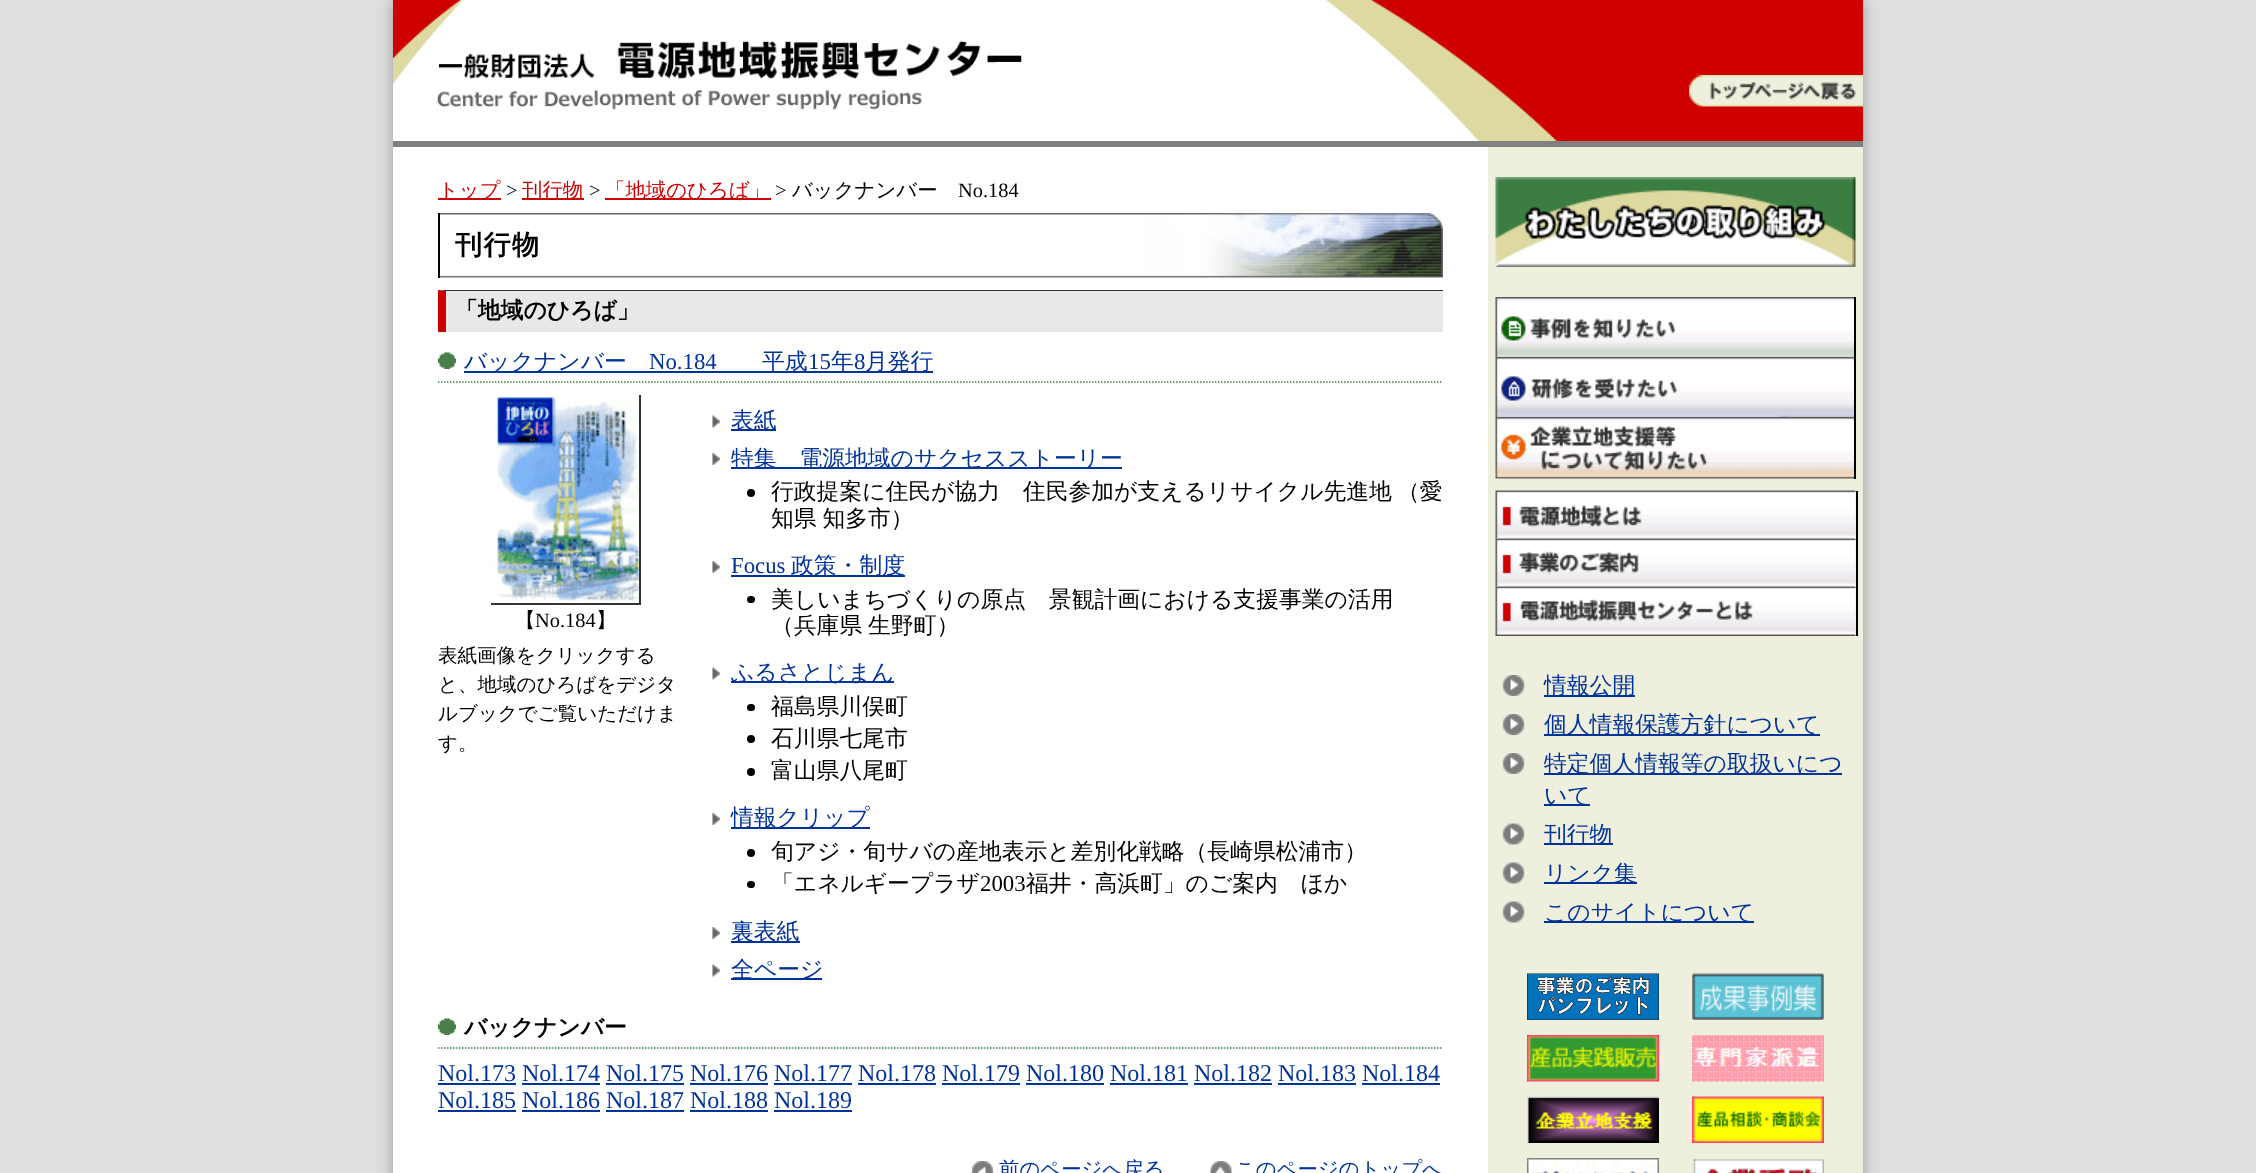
<!DOCTYPE html>
<meta charset="utf-8">
<style>body { margin: 0 } canvas { display: block }</style>
<canvas id="canvas" width="2256" height="1173"></canvas>
<img id="img1" src="img_01.png" hidden>
<img id="img2" src="img_02.png" hidden>
<img id="img3" src="img_03.png" hidden>
<img id="img4" src="img_04.png" hidden>
<img id="img5" src="img_05.png" hidden>
<img id="img6" src="img_06.png" hidden>
<img id="img7" src="img_07.png" hidden>
<img id="img8" src="img_08.png" hidden>
<img id="img9" src="img_09.png" hidden>
<img id="img10" src="img_10.png" hidden>
<img id="img11" src="img_11.png" hidden>
<img id="img12" src="img_12.png" hidden>
<img id="img13" src="img_13.png" hidden>
<img id="img14" src="img_14.png" hidden>
<img id="img15" src="img_15.png" hidden>
<img id="img16" src="img_16.png" hidden>
<img id="img17" src="img_17.png" hidden>
<img id="img18" src="img_18.png" hidden>
<img id="img19" src="img_19.png" hidden>
<img id="img20" src="img_20.png" hidden>
<img id="img21" src="img_21.png" hidden>
<img id="img22" src="img_22.png" hidden>
<img id="img23" src="img_23.png" hidden>
<img id="img24" src="img_24.png" hidden>
<img id="img25" src="img_25.png" hidden>
<img id="img26" src="img_26.png" hidden>
<img id="img27" src="img_27.png" hidden>
<script>
window.onload = function () {
	const canvas = document.getElementById("canvas");
	const ctx = canvas.getContext("2d");
	ctx.miterLimit = 4;
	ctx.fontKerning = "normal";
	function txt(s, x, y) {
		ctx.fillText(s, x, y);
	}
	function fill(x, y, w, h) {
		ctx.fillRect(x, y, w, h);
	}
	function round(x, y, w, h, r) {
		ctx.beginPath();
		ctx.roundRect(x, y, w, h, r);
		ctx.fill();
	}
	function img(id, x, y, w, h) {
		ctx.drawImage(document.getElementById(id), x, y, w, h);
	}

	ctx.fillStyle = "#DEDFDE";
	fill(0, 0, 2256, 1173);
	ctx.fillStyle = "#999999";
	ctx.filter = "blur(7.5px)";
	ctx.beginPath();
	ctx.rect(393, 0, 1470, 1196);
	ctx.fill();
	ctx.filter = "none";
	ctx.fillStyle = "#FFFFFF";
	fill(393, 0, 933, 141);
	img("img1", 393, 0, 629, 110);
	img("img2", 1326, 0, 537, 141);
	ctx.fillStyle = "#808080";
	fill(393, 141, 1470, 6);
	img("img3", 1689, 75, 174, 32);
	ctx.fillStyle = "#FFFFFF";
	fill(393, 147, 1095, 1026);
	ctx.fillStyle = "#CC0000";
	fill(438, 198, 63, 2);
	fill(522, 198, 62, 2);
	fill(605, 198, 166, 2);
	img("img4", 440, 213, 1003, 65);
	ctx.fillStyle = "#000000";
	fill(438, 213, 2, 65);
	ctx.fillStyle = "#E8E8E8";
	fill(438, 290, 1005, 42);
	ctx.fillStyle = "#333333";
	ctx.beginPath();
	ctx.moveTo(438, 290);
	ctx.lineTo(1443, 290);
	ctx.lineTo(1443, 291);
	ctx.lineTo(446, 291);
	ctx.closePath();
	ctx.fill();
	ctx.fillStyle = "#CC0000";
	ctx.beginPath();
	ctx.moveTo(438, 332);
	ctx.lineTo(438, 290);
	ctx.lineTo(446, 291);
	ctx.lineTo(446, 332);
	ctx.closePath();
	ctx.fill();
	img("img5", 438, 352, 18, 17);
	ctx.beginPath();
	ctx.moveTo(438, 382);
	ctx.lineTo(1443, 382);
	ctx.strokeStyle = "#487F48";
	ctx.lineWidth = 1.5;
	ctx.setLineDash([1.5, 1.5]);
	ctx.stroke();
	ctx.fillStyle = "#003399";
	fill(464, 371, 469, 2);
	ctx.fillStyle = "#333333";
	fill(639, 395, 2, 210);
	fill(491, 603, 150, 2);
	img("img6", 490, 395, 149, 208);
	img("img7", 712, 415, 8, 13);
	ctx.fillStyle = "#003399";
	fill(731, 429, 45, 2);
	img("img8", 712, 453, 8, 12);
	fill(731, 467, 391, 2);
	ctx.fillStyle = "#000000";
	ctx.beginPath();
	ctx.arc(751, 493, 4, 0, Math.PI * 2);
	ctx.fill();
	img("img8", 712, 561, 8, 12);
	ctx.fillStyle = "#003399";
	fill(731, 575, 174, 2);
	ctx.fillStyle = "#000000";
	round(747, 596, 8, 7, 3.5);
	img("img7", 712, 667, 8, 13);
	ctx.fillStyle = "#003399";
	fill(731, 681, 163, 2);
	ctx.fillStyle = "#000000";
	round(747, 704, 8, 7, 3.5);
	ctx.beginPath();
	ctx.arc(751, 739, 4, 0, Math.PI * 2);
	ctx.fill();
	ctx.beginPath();
	ctx.arc(751, 772, 4, 0, Math.PI * 2);
	ctx.fill();
	img("img8", 712, 813, 8, 12);
	ctx.fillStyle = "#003399";
	fill(731, 827, 139, 2);
	ctx.fillStyle = "#000000";
	ctx.beginPath();
	ctx.arc(751, 853, 4, 0, Math.PI * 2);
	ctx.fill();
	round(747, 881, 8, 7, 3.5);
	img("img8", 712, 927, 8, 12);
	ctx.fillStyle = "#003399";
	fill(731, 941, 69, 2);
	img("img7", 712, 964, 8, 13);
	fill(731, 978, 91, 2);
	img("img5", 438, 1018, 18, 17);
	ctx.beginPath();
	ctx.moveTo(438, 1048);
	ctx.lineTo(1443, 1048);
	ctx.stroke();
	fill(438, 1083, 78, 2);
	fill(522, 1083, 78, 2);
	fill(606, 1083, 78, 2);
	fill(690, 1083, 78, 2);
	fill(774, 1083, 78, 2);
	fill(858, 1083, 78, 2);
	fill(942, 1083, 78, 2);
	fill(1026, 1083, 78, 2);
	fill(1110, 1083, 78, 2);
	fill(1194, 1083, 78, 2);
	fill(1278, 1083, 78, 2);
	fill(1362, 1083, 78, 2);
	fill(438, 1110, 78, 2);
	fill(522, 1110, 78, 2);
	fill(606, 1110, 78, 2);
	fill(690, 1110, 78, 2);
	fill(774, 1110, 78, 2);
	img("img9", 971, 1161, 23, 12);
	img("img10", 1210, 1161, 22, 12);
	ctx.fillStyle = "#EFEFDE";
	fill(1488, 147, 375, 1026);
	img("img11", 1495, 177, 361, 90);
	img("img12", 1495, 297, 359, 60);
	ctx.fillStyle = "#000000";
	fill(1854, 297, 2, 182);
	img("img13", 1495, 357, 359, 60);
	img("img14", 1495, 417, 359, 62);
	img("img15", 1495, 490, 361, 49);
	fill(1856, 491, 2, 145);
	img("img16", 1495, 538, 361, 49);
	img("img17", 1495, 586, 361, 50);
	img("img18", 1502, 675, 23, 21);
	ctx.fillStyle = "#003399";
	fill(1544, 695, 91, 2);
	img("img18", 1502, 714, 23, 21);
	fill(1544, 734, 276, 2);
	img("img18", 1502, 753, 23, 21);
	fill(1544, 773, 298, 2);
	fill(1544, 804, 46, 2);
	img("img19", 1502, 823, 23, 22);
	fill(1544, 843, 69, 2);
	img("img19", 1502, 862, 23, 22);
	fill(1544, 882, 93, 2);
	img("img19", 1502, 901, 23, 22);
	fill(1544, 921, 210, 2);
	img("img20", 1527, 973, 132, 47);
	img("img21", 1692, 973, 132, 47);
	img("img22", 1527, 1035, 132, 47);
	img("img23", 1692, 1035, 132, 47);
	img("img24", 1527, 1096, 132, 47);
	img("img25", 1692, 1096, 132, 47);
	img("img26", 1527, 1158, 132, 15);
	img("img27", 1693, 1159, 131, 14);
	ctx.font = "500 20.4px WenQuanYi Zen Hei";
	ctx.fillStyle = "#CC0000";
	txt("トップ", 438, 197);
	ctx.font = "20.4px Liberation Serif";
	ctx.fillStyle = "#000000";
	txt(">", 506, 197);
	ctx.font = "500 20.4px WenQuanYi Zen Hei";
	ctx.fillStyle = "#CC0000";
	txt("刊行物", 522, 197);
	ctx.font = "20.4px Liberation Serif";
	ctx.fillStyle = "#000000";
	txt(">", 589, 197);
	ctx.font = "500 20.4px WenQuanYi Zen Hei";
	ctx.fillStyle = "#CC0000";
	txt("「地域のひろば」", 605, 197);
	ctx.font = "20.4px Liberation Serif";
	ctx.fillStyle = "#000000";
	txt(">", 775, 197);
	ctx.font = "500 20.4px WenQuanYi Zen Hei";
	txt("バックナンバー", 792, 197);
	ctx.font = "20.4px Liberation Serif";
	txt("No.184", 958, 197);
	ctx.letterSpacing = "1.5px";
	ctx.font = "bold 27px WenQuanYi Zen Hei";
	txt("刊行物", 455, 254);
	ctx.letterSpacing = "0px";
	ctx.font = "bold 22.8px WenQuanYi Zen Hei";
	txt("「地域のひろば」", 455, 318);
	ctx.font = "500 22.8px WenQuanYi Zen Hei";
	ctx.fillStyle = "#003399";
	txt("バックナンバー", 464, 369);
	ctx.font = "22.8px Liberation Serif";
	txt("No.184", 649, 369);
	ctx.font = "500 22.8px WenQuanYi Zen Hei";
	txt("平成", 762, 369);
	ctx.font = "22.8px Liberation Serif";
	txt("15", 808, 369);
	ctx.font = "500 22.8px WenQuanYi Zen Hei";
	txt("年", 831, 369);
	ctx.font = "22.8px Liberation Serif";
	txt("8", 854, 369);
	ctx.font = "500 22.8px WenQuanYi Zen Hei";
	txt("月発行", 865, 369);
	ctx.font = "500 20.4px WenQuanYi Zen Hei";
	ctx.fillStyle = "#000000";
	txt("【", 515, 627);
	ctx.font = "20.4px Liberation Serif";
	txt("No.184", 535, 627);
	ctx.font = "500 20.4px WenQuanYi Zen Hei";
	txt("】", 596, 627);
	ctx.font = "500 19.5px WenQuanYi Zen Hei";
	txt("表紙画像をクリックする", 438, 662);
	txt("と、地域のひろばをデジタ", 438, 691);
	txt("ルブックでご覧いただけま", 438, 720);
	txt("す。", 438, 750);
	ctx.font = "500 22.8px WenQuanYi Zen Hei";
	ctx.fillStyle = "#003399";
	txt("表紙", 731, 428);
	txt("特集　電源地域のサクセスストーリー", 731, 466);
	ctx.fillStyle = "#000000";
	txt("行政提案に住民が協力　住民参加が支えるリサイクル先進地", 771, 499);
	txt("（愛", 1397, 499);
	ctx.wordSpacing = "-1px";
	txt("知県 知多市）", 771, 526);
	ctx.wordSpacing = "0px";
	ctx.font = "22.8px Liberation Serif";
	ctx.fillStyle = "#003399";
	txt("Focus", 731, 573);
	ctx.font = "500 22.8px WenQuanYi Zen Hei";
	txt("政策・制度", 791, 573);
	ctx.fillStyle = "#000000";
	txt("美しいまちづくりの原点　景観計画における支援事業の活用", 771, 607);
	ctx.wordSpacing = "-1px";
	txt("（兵庫県 生野町）", 771, 633);
	ctx.wordSpacing = "0px";
	ctx.fillStyle = "#003399";
	txt("ふるさとじまん", 731, 680);
	ctx.fillStyle = "#000000";
	txt("福島県川俣町", 771, 714);
	txt("石川県七尾市", 771, 746);
	txt("富山県八尾町", 771, 778);
	ctx.fillStyle = "#003399";
	txt("情報クリップ", 731, 825);
	ctx.fillStyle = "#000000";
	txt("旬アジ・旬サバの産地表示と差別化戦略（長崎県松浦市）", 771, 859);
	txt("「エネルギープラザ", 771, 891);
	ctx.font = "22.8px Liberation Serif";
	txt("2003", 980, 891);
	ctx.font = "500 22.8px WenQuanYi Zen Hei";
	txt("福井・高浜町」のご案内　ほか", 1026, 891);
	ctx.fillStyle = "#003399";
	txt("裏表紙", 731, 939);
	txt("全ページ", 731, 977);
	ctx.font = "bold 22.8px WenQuanYi Zen Hei";
	ctx.fillStyle = "#000000";
	txt("バックナンバー", 464, 1035);
	ctx.font = "24px Liberation Serif";
	ctx.fillStyle = "#003399";
	txt("Nol.173 Nol.174 Nol.175 Nol.176 Nol.177 Nol.178 Nol.179 Nol.180 Nol.181 Nol.182 Nol.183 Nol.184", 438, 1081);
	txt("Nol.185 Nol.186 Nol.187 Nol.188 Nol.189", 438, 1108);
	ctx.font = "500 20.4px WenQuanYi Zen Hei";
	txt("前のページへ戻る", 999, 1176);
	txt("このページのトップへ", 1235, 1176);
	ctx.font = "500 22.8px WenQuanYi Zen Hei";
	txt("情報公開", 1544, 693);
	txt("個人情報保護方針について", 1544, 732);
	txt("特定個人情報等の取扱いにつ", 1544, 771);
	txt("いて", 1544, 803);
	txt("刊行物", 1544, 842);
	txt("リンク集", 1544, 881);
	txt("このサイトについて", 1544, 920);
};
</script>
